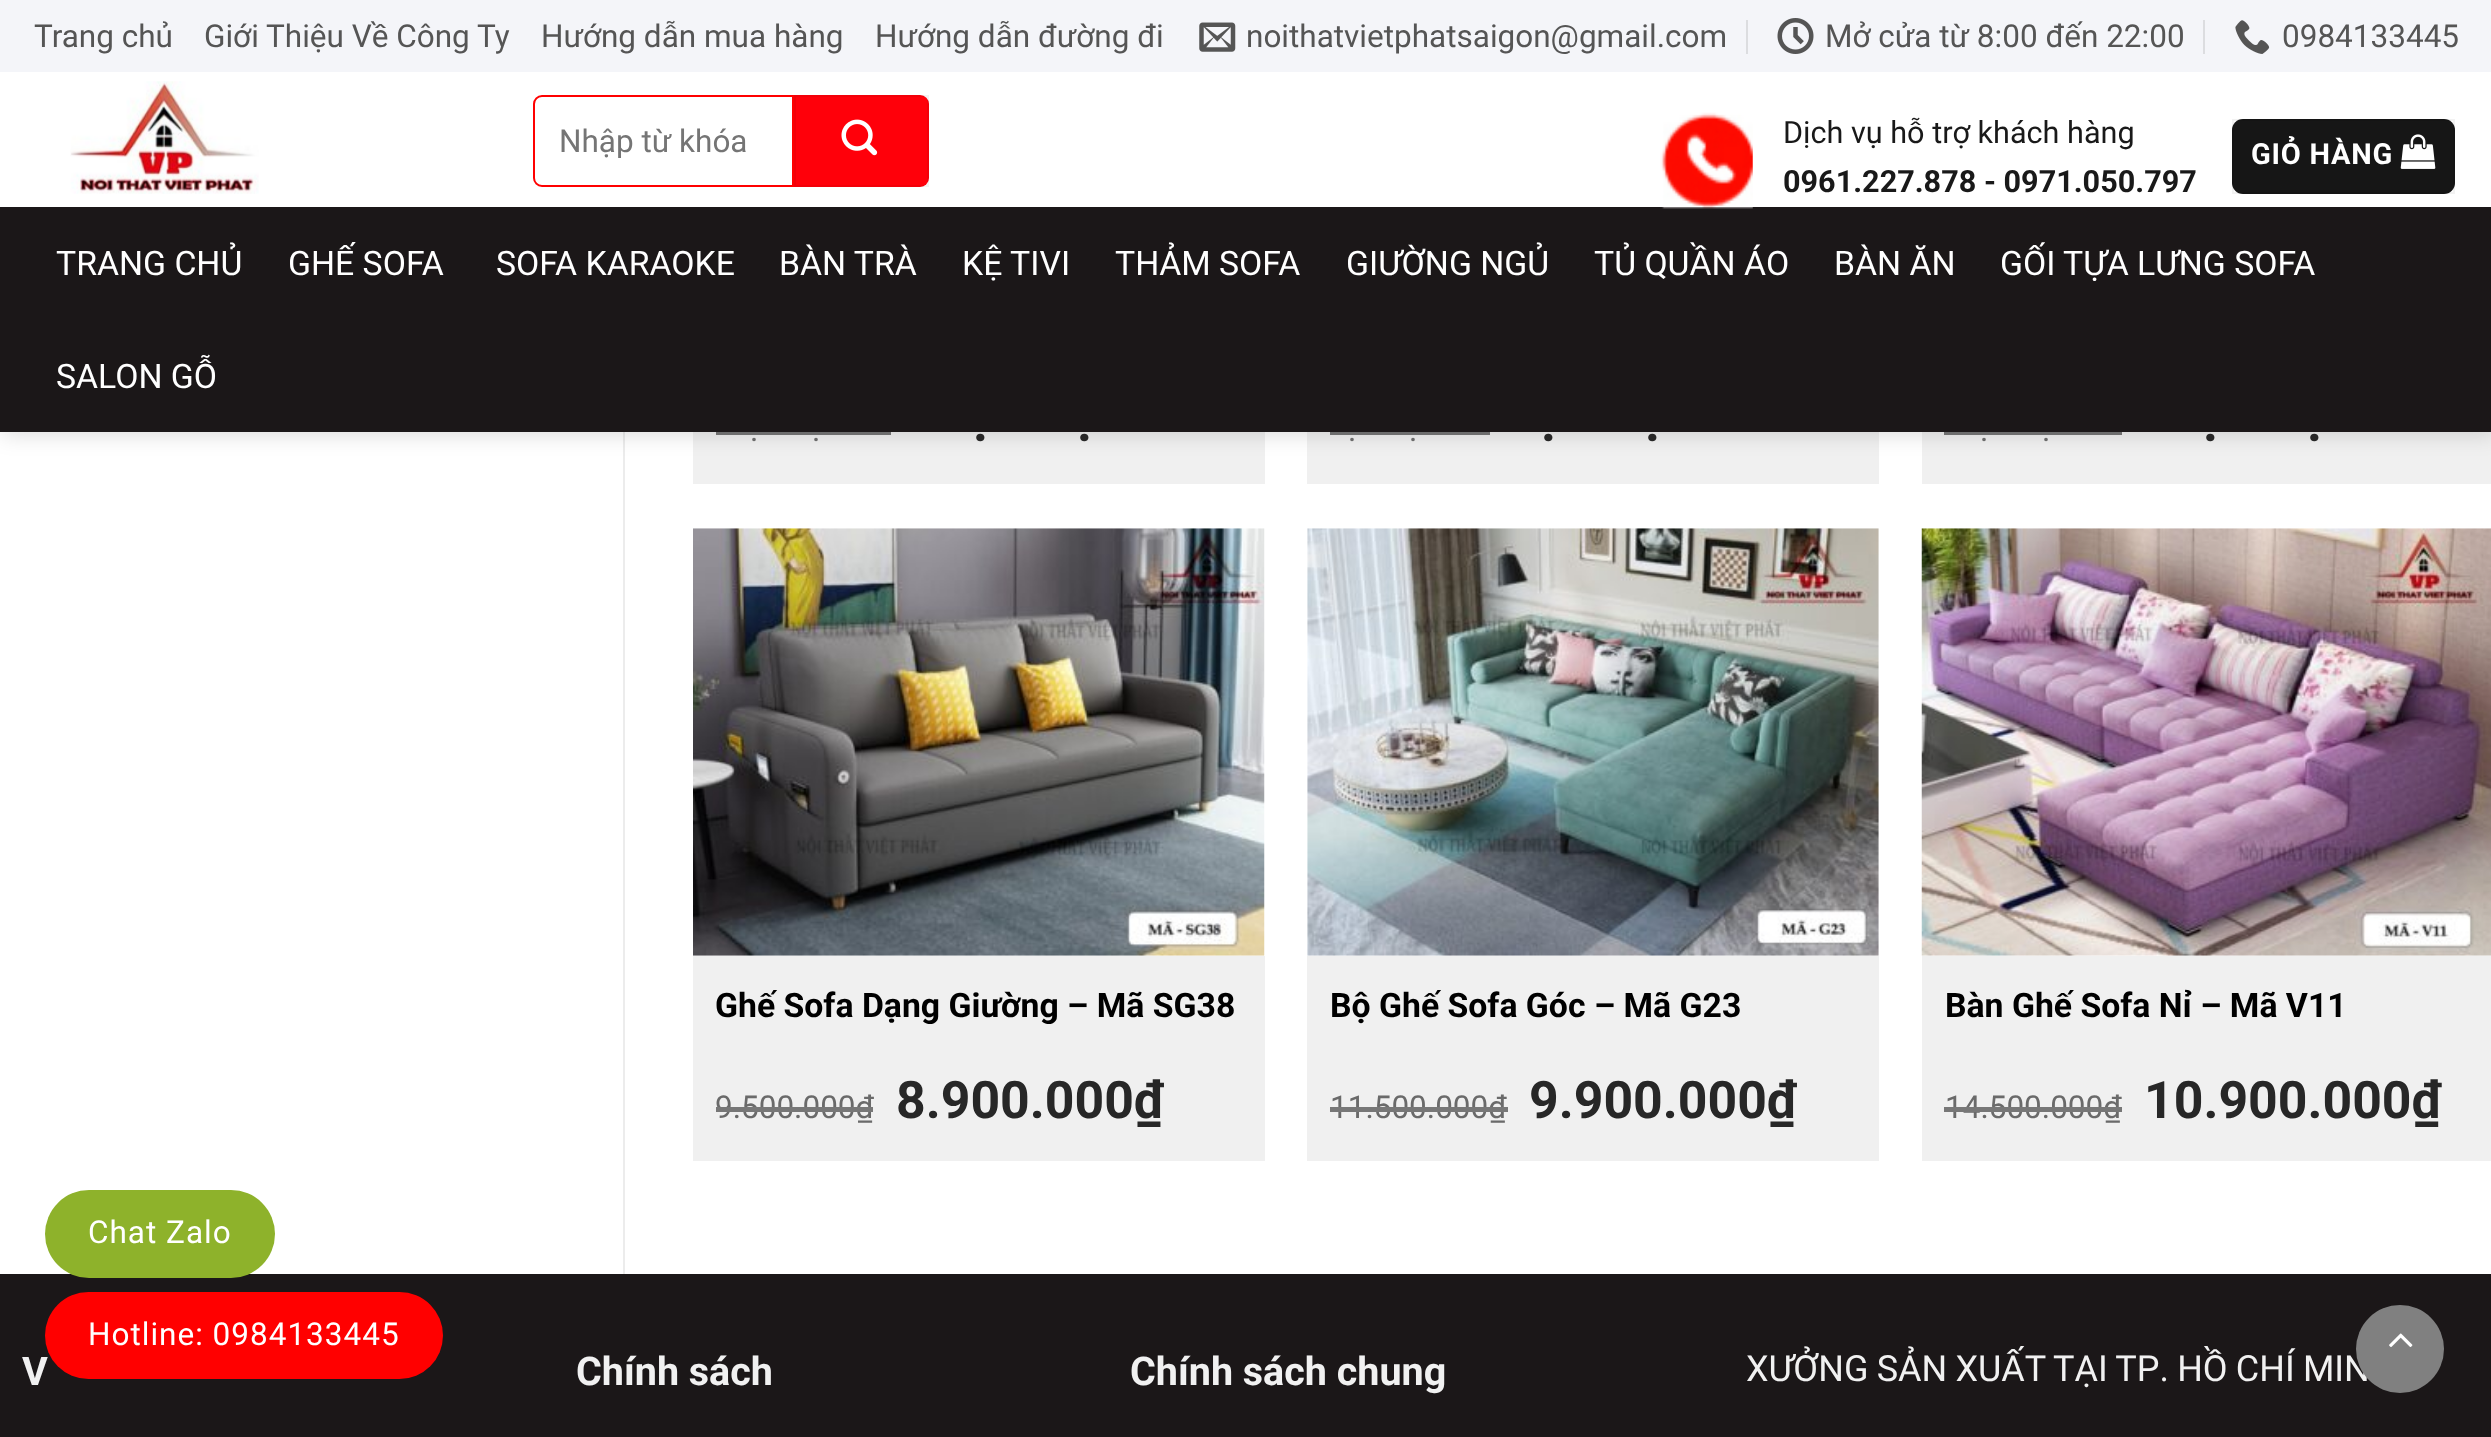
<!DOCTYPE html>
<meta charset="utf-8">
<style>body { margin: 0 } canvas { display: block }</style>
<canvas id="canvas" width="2491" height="1437"></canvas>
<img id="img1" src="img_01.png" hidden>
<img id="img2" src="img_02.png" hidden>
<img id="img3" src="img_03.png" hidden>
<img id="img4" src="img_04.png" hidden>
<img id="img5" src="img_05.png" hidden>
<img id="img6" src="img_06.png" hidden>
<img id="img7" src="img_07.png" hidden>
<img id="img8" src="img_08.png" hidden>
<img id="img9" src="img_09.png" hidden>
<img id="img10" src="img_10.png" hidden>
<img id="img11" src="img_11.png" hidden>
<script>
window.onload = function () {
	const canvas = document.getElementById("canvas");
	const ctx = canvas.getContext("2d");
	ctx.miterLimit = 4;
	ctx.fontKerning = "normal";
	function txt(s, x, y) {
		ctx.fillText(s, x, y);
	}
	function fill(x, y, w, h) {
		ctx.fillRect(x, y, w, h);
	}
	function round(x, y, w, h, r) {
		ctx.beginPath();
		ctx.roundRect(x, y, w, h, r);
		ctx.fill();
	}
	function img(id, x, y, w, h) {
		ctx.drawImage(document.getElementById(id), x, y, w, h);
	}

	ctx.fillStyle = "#FFFFFF";
	fill(0, 0, 2491, 1437);
	ctx.fillStyle = "#ECECEC";
	fill(623, 432, 2, 842);
	ctx.fillStyle = "#F0F0F0";
	fill(693, 432, 572, 52);
	ctx.fillStyle = "#777777";
	fill(716, 432, 175, 3);
	ctx.fillStyle = "#F0F0F0";
	fill(1307, 432, 572, 52);
	ctx.fillStyle = "#777777";
	fill(1330, 432, 160, 3);
	ctx.fillStyle = "#F0F0F0";
	fill(1922, 432, 569, 52);
	ctx.fillStyle = "#777777";
	fill(1944, 432, 178, 3);
	ctx.fillStyle = "rgba(0, 0, 0, 0.15)";
	ctx.filter = "blur(11px)";
	ctx.beginPath();
	ctx.rect(2, 2, 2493, 432);
	ctx.fill();
	ctx.filter = "none";
	ctx.fillStyle = "#F4F5F9";
	fill(0, 0, 2491, 72);
	img("img1", 1199, 22, 37, 30);
	ctx.fillStyle = "#DCDDE0";
	fill(1746, 20, 2, 34);
	img("img2", 1777, 18, 37, 36);
	fill(2203, 20, 2, 34);
	img("img3", 2235, 20, 35, 34);
	ctx.fillStyle = "#FFFFFF";
	fill(0, 72, 2491, 135);
	img("img4", 70, 81, 189, 113);
	ctx.beginPath();
	ctx.roundRect(534, 96, 259, 90, [8, 0, 0, 8]);
	ctx.strokeStyle = "#FF0000";
	ctx.lineWidth = 2;
	ctx.stroke();
	ctx.fillStyle = "#FF000A";
	ctx.beginPath();
	ctx.roundRect(794, 95, 135, 92, [0, 9, 9, 0]);
	ctx.fill();
	ctx.strokeStyle = "rgba(0, 0, 0, 0.05)";
	ctx.strokeRect(795, 96, 133, 90);
	img("img5", 841, 119, 37, 37);
	ctx.fillStyle = "#1B1718";
	fill(0, 207, 2491, 225);
	img("img6", 1660, 112, 93, 97);
	ctx.fillStyle = "#161616";
	round(2232, 119, 223, 75, 11);
	ctx.strokeRect(2233, 120, 221, 73);
	img("img7", 2400, 134, 36, 35);
	ctx.fillStyle = "rgba(25, 25, 25, 0.1)";
	fill(1662, 207, 91, 2);
	img("img8", 693, 528, 572, 428);
	ctx.fillStyle = "#F0F0F0";
	fill(693, 956, 572, 205);
	img("img9", 1307, 528, 572, 428);
	fill(1307, 956, 572, 205);
	img("img10", 1921, 528, 570, 428);
	fill(1922, 956, 569, 205);
	ctx.fillStyle = "#1B1718";
	fill(0, 1274, 2491, 163);
	ctx.fillStyle = "#8EB22B";
	round(45, 1190, 230, 88, 44);
	ctx.font = "31.5px Roboto";
	ctx.fillStyle = "#555555";
	txt("Trang chủ", 34, 47);
	txt("Giới Thiệu Về Công Ty", 204, 47);
	txt("Hướng dẫn mua hàng", 541, 47);
	txt("Hướng dẫn đường đi", 875, 47);
	txt("noithatvietphatsaigon@gmail.com", 1246, 47);
	txt("Mở cửa từ 8:00 đến 22:00", 1825, 47);
	txt("0984133445", 2282, 47);
	ctx.save();
	ctx.beginPath();
	ctx.rect(560, 122, 198, 36);
	ctx.clip();
	ctx.fillStyle = "#757575";
	txt("Nhập từ khóa", 559, 152);
	ctx.restore();
	ctx.font = "30.6px Roboto";
	ctx.fillStyle = "#191919";
	txt("Dịch vụ hỗ trợ khách hàng", 1783, 143);
	ctx.font = "bold 30.6px Roboto";
	txt("0961.227.878 - 0971.050.797", 1783, 192);
	ctx.letterSpacing = "0.75px";
	ctx.font = "bold 29px Roboto";
	ctx.fillStyle = "#FFFFFF";
	txt("GIỎ HÀNG", 2251, 164);
	ctx.letterSpacing = "0px";
	ctx.font = "33.75px Roboto";
	txt("TRANG CHỦ", 56, 275);
	txt("GHẾ SOFA", 288, 275);
	txt("SOFA KARAOKE", 496, 275);
	txt("BÀN TRÀ", 779, 275);
	txt("KỆ TIVI", 962, 275);
	txt("THẢM SOFA", 1115, 275);
	txt("GIƯỜNG NGỦ", 1346, 275);
	txt("TỦ QUẦN ÁO", 1594, 275);
	txt("BÀN ĂN", 1834, 275);
	txt("GỐI TỰA LƯNG SOFA", 2000, 275);
	txt("SALON GỖ", 56, 388);
	ctx.font = "31.5px Roboto";
	ctx.fillStyle = "#6A6A6A";
	txt(".", 750, 441);
	txt(".", 812, 441);
	ctx.font = "bold 51.75px Roboto";
	ctx.fillStyle = "#272727";
	txt(".", 973, 441);
	txt(".", 1077, 441);
	ctx.font = "31.5px Roboto";
	ctx.fillStyle = "#6A6A6A";
	txt(".", 1348, 441);
	txt(".", 1409, 441);
	ctx.font = "bold 51.75px Roboto";
	ctx.fillStyle = "#272727";
	txt(".", 1541, 441);
	txt(".", 1645, 441);
	ctx.font = "31.5px Roboto";
	ctx.fillStyle = "#6A6A6A";
	txt(".", 1980, 441);
	txt(".", 2042, 441);
	ctx.font = "bold 51.75px Roboto";
	ctx.fillStyle = "#272727";
	txt(".", 2203, 441);
	txt(".", 2307, 441);
	ctx.font = "bold 33.75px Roboto";
	ctx.fillStyle = "#000000";
	txt("Ghế Sofa Dạng Giường – Mã SG38", 715, 1017);
	ctx.font = "31.5px Roboto";
	ctx.fillStyle = "#6A6A6A";
	txt("9.500.000₫", 715, 1118);
	ctx.fillStyle = "#777777";
	fill(716, 1107, 157, 5);
	ctx.font = "bold 51.75px Roboto";
	ctx.fillStyle = "#272727";
	txt("8.900.000₫", 896, 1118);
	ctx.font = "bold 33.75px Roboto";
	ctx.fillStyle = "#000000";
	txt("Bộ Ghế Sofa Góc – Mã G23", 1330, 1017);
	ctx.font = "31.5px Roboto";
	ctx.fillStyle = "#6A6A6A";
	txt("11.500.000₫", 1330, 1118);
	ctx.fillStyle = "#777777";
	fill(1330, 1107, 178, 5);
	ctx.font = "bold 51.75px Roboto";
	ctx.fillStyle = "#272727";
	txt("9.900.000₫", 1529, 1118);
	ctx.font = "bold 33.75px Roboto";
	ctx.fillStyle = "#000000";
	txt("Bàn Ghế Sofa Nỉ – Mã V11", 1945, 1017);
	ctx.font = "31.5px Roboto";
	ctx.fillStyle = "#6A6A6A";
	txt("14.500.000₫", 1945, 1118);
	ctx.fillStyle = "#777777";
	fill(1944, 1107, 178, 5);
	ctx.font = "bold 51.75px Roboto";
	ctx.fillStyle = "#272727";
	txt("10.900.000₫", 2144, 1118);
	ctx.font = "bold 39.5px Roboto";
	ctx.fillStyle = "#F1F1F1";
	txt("V", 22, 1385);
	txt("Chính sách", 576, 1385);
	txt("Chính sách chung", 1130, 1385);
	ctx.wordSpacing = "-0.75px";
	ctx.font = "36px Roboto";
	txt("XƯỞNG SẢN XUẤT TẠI TP. HỒ CHÍ MIN", 1746, 1381);
	ctx.fillStyle = "#808080";
	ctx.beginPath();
	ctx.arc(2400, 1349, 44, 0, Math.PI * 2);
	ctx.fill();
	img("img11", 2389, 1333, 24, 14);
	ctx.letterSpacing = "1px";
	ctx.wordSpacing = "0px";
	ctx.font = "31.5px Roboto";
	ctx.fillStyle = "#FFFFFF";
	txt("Chat Zalo", 88, 1243);
	ctx.fillStyle = "#FF0000";
	round(45, 1292, 398, 87, 43.5);
	ctx.fillStyle = "#FFFFFF";
	txt("Hotline: 0984133445", 88, 1345);
};
</script>
